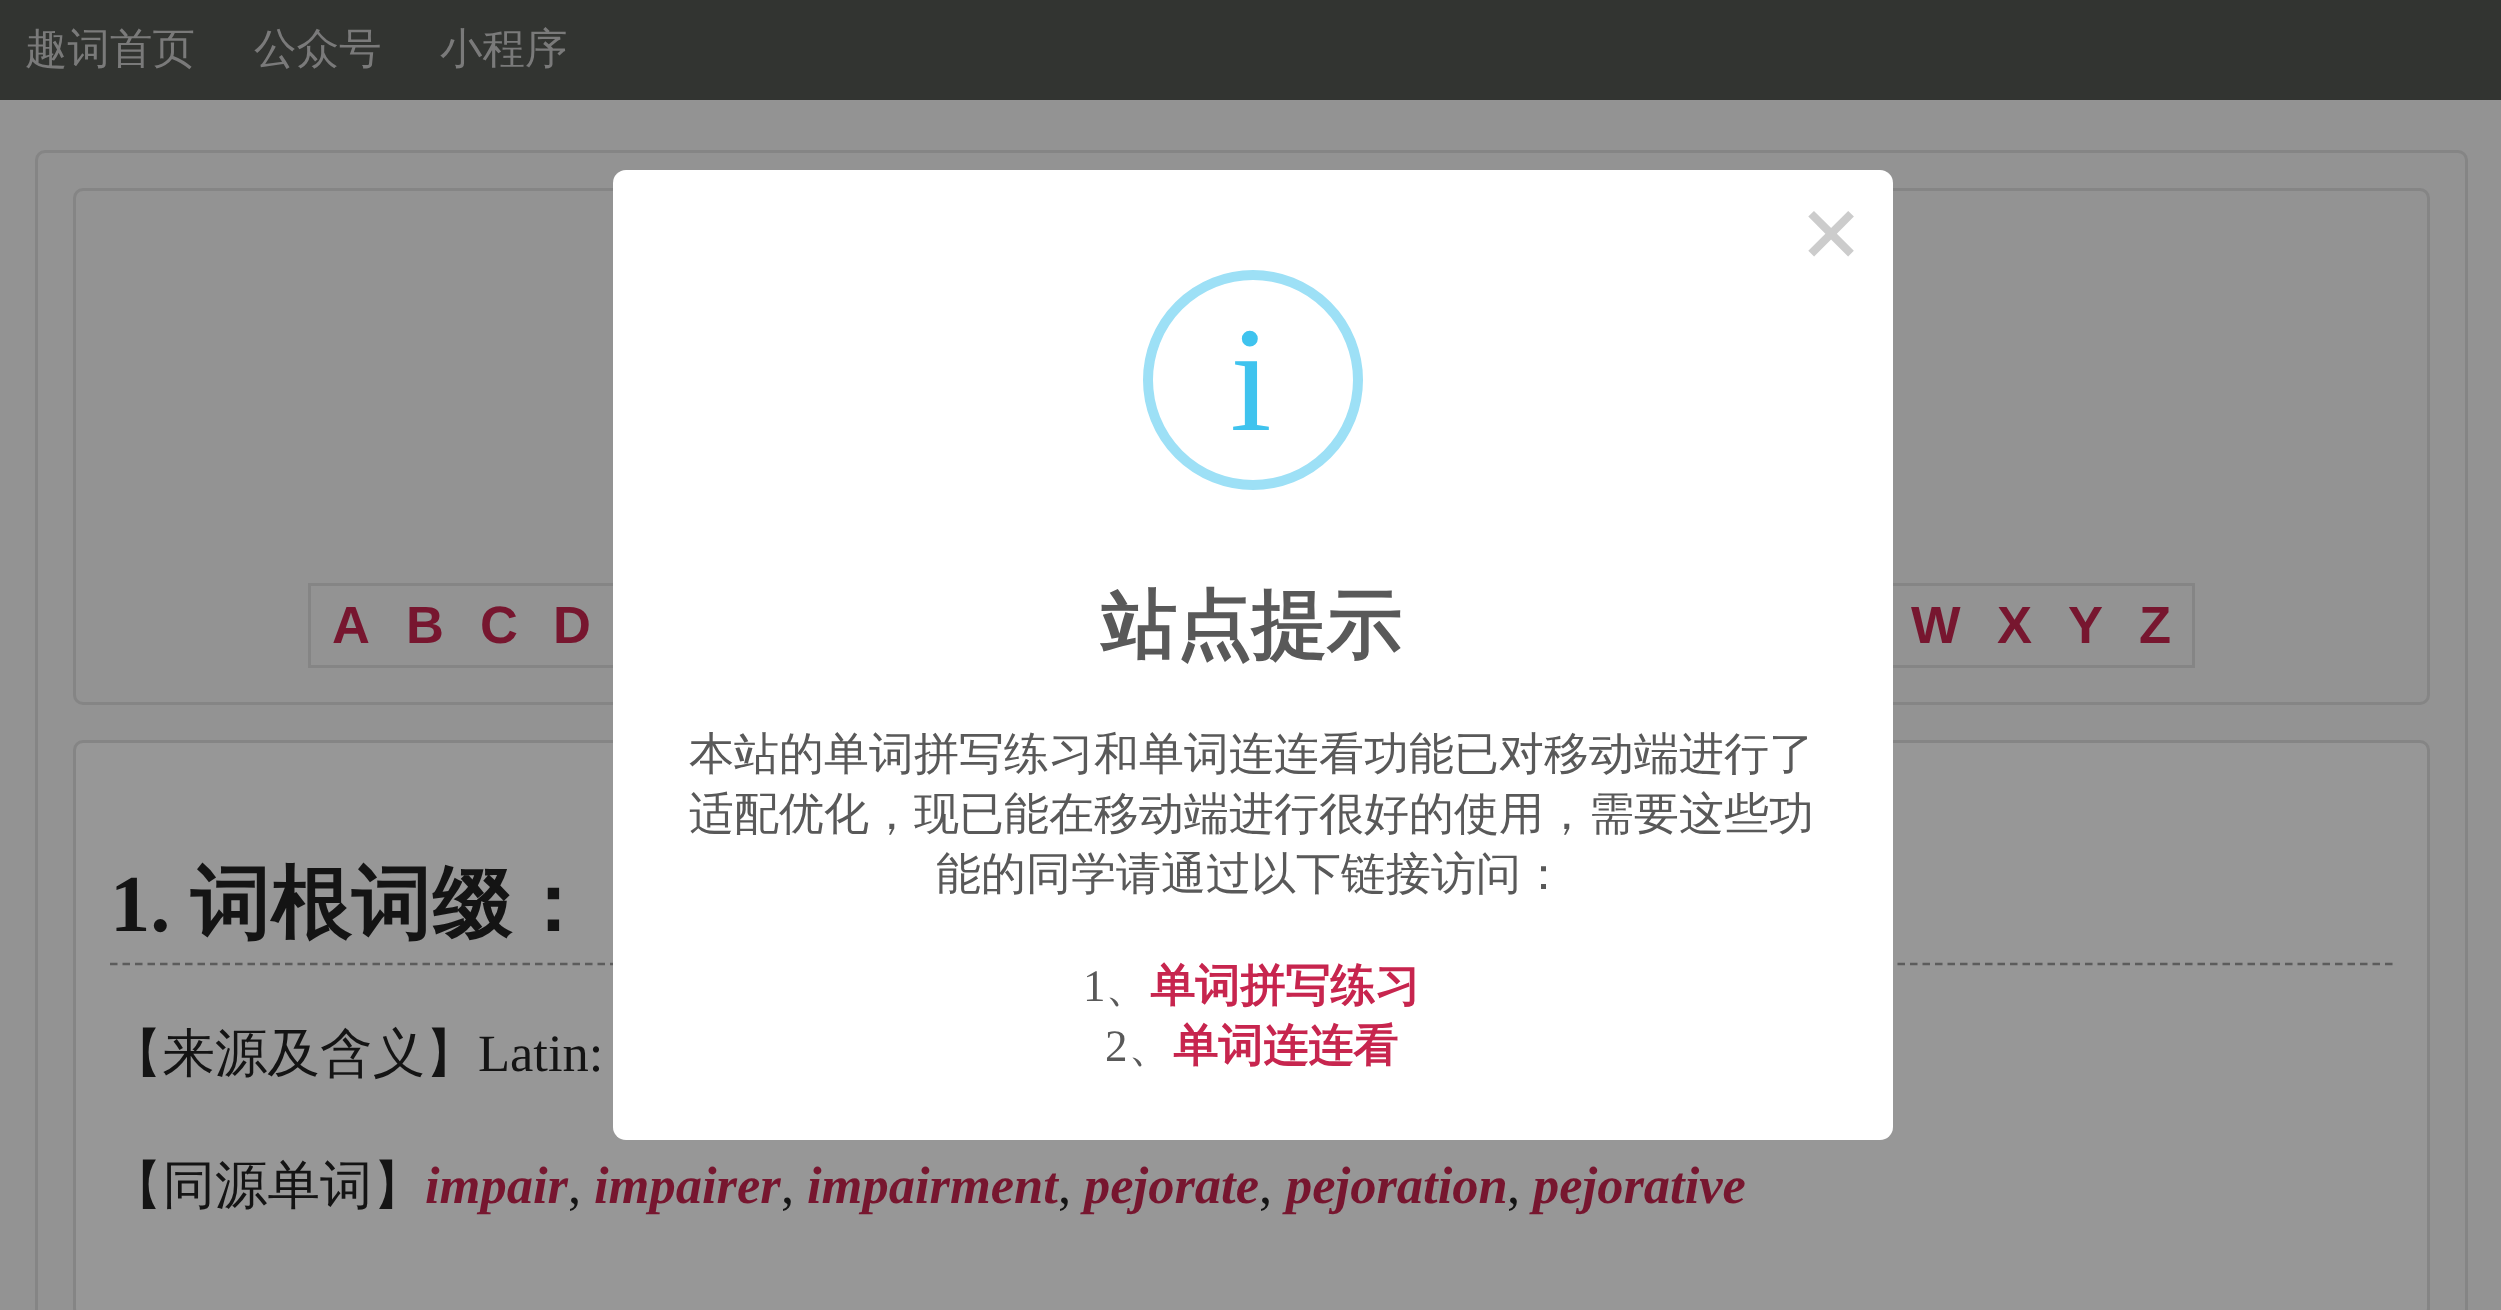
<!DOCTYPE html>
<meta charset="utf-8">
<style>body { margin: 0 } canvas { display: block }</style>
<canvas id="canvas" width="2501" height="1310"></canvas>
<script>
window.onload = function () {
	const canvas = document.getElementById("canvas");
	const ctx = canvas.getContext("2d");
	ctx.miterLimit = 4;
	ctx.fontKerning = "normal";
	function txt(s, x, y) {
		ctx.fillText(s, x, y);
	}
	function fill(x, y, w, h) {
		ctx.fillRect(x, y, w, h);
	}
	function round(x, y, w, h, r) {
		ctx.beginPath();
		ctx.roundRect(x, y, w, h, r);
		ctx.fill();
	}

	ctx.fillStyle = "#939393";
	fill(0, 0, 2501, 1310);
	ctx.fillStyle = "#323431";
	fill(0, 0, 2501, 100);
	ctx.beginPath();
	ctx.roundRect(36.5, 151.5, 2430, 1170, 8.5);
	ctx.strokeStyle = "#858585";
	ctx.lineWidth = 3;
	ctx.stroke();
	ctx.beginPath();
	ctx.roundRect(74.5, 189.5, 2354, 514, 8.5);
	ctx.stroke();
	ctx.strokeRect(309.5, 584.5, 1884, 82);
	ctx.fillStyle = "#979797";
	ctx.beginPath();
	ctx.roundRect(74.5, 741.5, 2354, 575, 8.5);
	ctx.fill();
	ctx.stroke();
	ctx.beginPath();
	ctx.moveTo(110, 964);
	ctx.lineTo(2392.5, 964);
	ctx.strokeStyle = "#5C5C5C";
	ctx.lineWidth = 2.5;
	ctx.setLineDash([7.5, 5]);
	ctx.stroke();
	ctx.fillStyle = "#FFFFFF";
	round(613, 170, 1280, 970, 13);
	ctx.beginPath();
	ctx.arc(1253, 380, 105, 0, Math.PI * 2);
	ctx.strokeStyle = "#9DE0F6";
	ctx.lineWidth = 10;
	ctx.setLineDash([]);
	ctx.stroke();
	ctx.font = "500 42.5px WenQuanYi Zen Hei";
	ctx.fillStyle = "#7A7A7A";
	txt("趣词首页", 25, 63);
	txt("公众号", 254, 63);
	txt("小程序", 440, 63);
	ctx.font = "100px DejaVu Sans Mono";
	ctx.fillStyle = "#CCCCCC";
	txt("×", 1801, 265);
	ctx.font = "150px Liberation Serif";
	ctx.fillStyle = "#3FC3EE";
	txt("i", 1230, 430);
	ctx.font = "bold 75px WenQuanYi Zen Hei";
	ctx.fillStyle = "#595959";
	txt("站点提示", 1101, 651);
	ctx.font = "500 45px WenQuanYi Zen Hei";
	txt("本站的单词拼写练习和单词连连看功能已对移动端进行了", 689, 769);
	txt("适配优化，现已能在移动端进行很好的使用，需要这些功", 689, 829);
	txt("能的同学请通过以下链接访问：", 936, 889);
	ctx.font = "45px Liberation Serif";
	txt("1", 1083, 1001);
	ctx.font = "bold 45px WenQuanYi Zen Hei";
	ctx.fillStyle = "#C7254E";
	txt("单词拼写练习", 1150, 1001);
	ctx.font = "500 45px WenQuanYi Zen Hei";
	ctx.fillStyle = "#595959";
	txt("、", 1105, 1001);
	ctx.font = "45px Liberation Serif";
	txt("2", 1105, 1061);
	ctx.font = "bold 45px WenQuanYi Zen Hei";
	ctx.fillStyle = "#C7254E";
	txt("单词连连看", 1173, 1061);
	ctx.font = "500 45px WenQuanYi Zen Hei";
	ctx.fillStyle = "#595959";
	txt("、", 1128, 1061);
	ctx.font = "bold 52.5px Liberation Sans";
	ctx.fillStyle = "#77162F";
	txt("A", 332, 643);
	txt("B", 406, 643);
	txt("C", 480, 643);
	txt("D", 553, 643);
	txt("W", 1911, 643);
	txt("X", 1997, 643);
	txt("Y", 2068, 643);
	txt("Z", 2139, 643);
	ctx.font = "bold 80.5px Liberation Serif";
	ctx.fillStyle = "#141414";
	txt("1.", 110, 931);
	ctx.font = "bold 80.5px WenQuanYi Zen Hei";
	txt("词根词缀：", 190, 931);
	ctx.font = "500 52.5px WenQuanYi Zen Hei";
	txt("【来源及含义】", 110, 1071);
	ctx.font = "52.5px Liberation Serif";
	txt("Latin:", 478, 1071);
	ctx.font = "500 52.5px WenQuanYi Zen Hei";
	txt("【同源单词】", 110, 1203);
	ctx.font = "italic bold 52.5px Liberation Serif";
	ctx.fillStyle = "#77162F";
	txt("impair", 425, 1203);
	ctx.font = "52.5px Liberation Serif";
	ctx.fillStyle = "#141414";
	txt(",", 568, 1203);
	ctx.font = "italic bold 52.5px Liberation Serif";
	ctx.fillStyle = "#77162F";
	txt("impairer", 594, 1203);
	ctx.font = "52.5px Liberation Serif";
	ctx.fillStyle = "#141414";
	txt(",", 781, 1203);
	ctx.font = "italic bold 52.5px Liberation Serif";
	ctx.fillStyle = "#77162F";
	txt("impairment", 807, 1203);
	ctx.font = "52.5px Liberation Serif";
	ctx.fillStyle = "#141414";
	txt(",", 1058, 1203);
	ctx.font = "italic bold 52.5px Liberation Serif";
	ctx.fillStyle = "#77162F";
	txt("pejorate", 1084, 1203);
	ctx.font = "52.5px Liberation Serif";
	ctx.fillStyle = "#141414";
	txt(",", 1259, 1203);
	ctx.font = "italic bold 52.5px Liberation Serif";
	ctx.fillStyle = "#77162F";
	txt("pejoration", 1286, 1203);
	ctx.font = "52.5px Liberation Serif";
	ctx.fillStyle = "#141414";
	txt(",", 1507, 1203);
	ctx.font = "italic bold 52.5px Liberation Serif";
	ctx.fillStyle = "#77162F";
	txt("pejorative", 1533, 1203);
};
</script>
